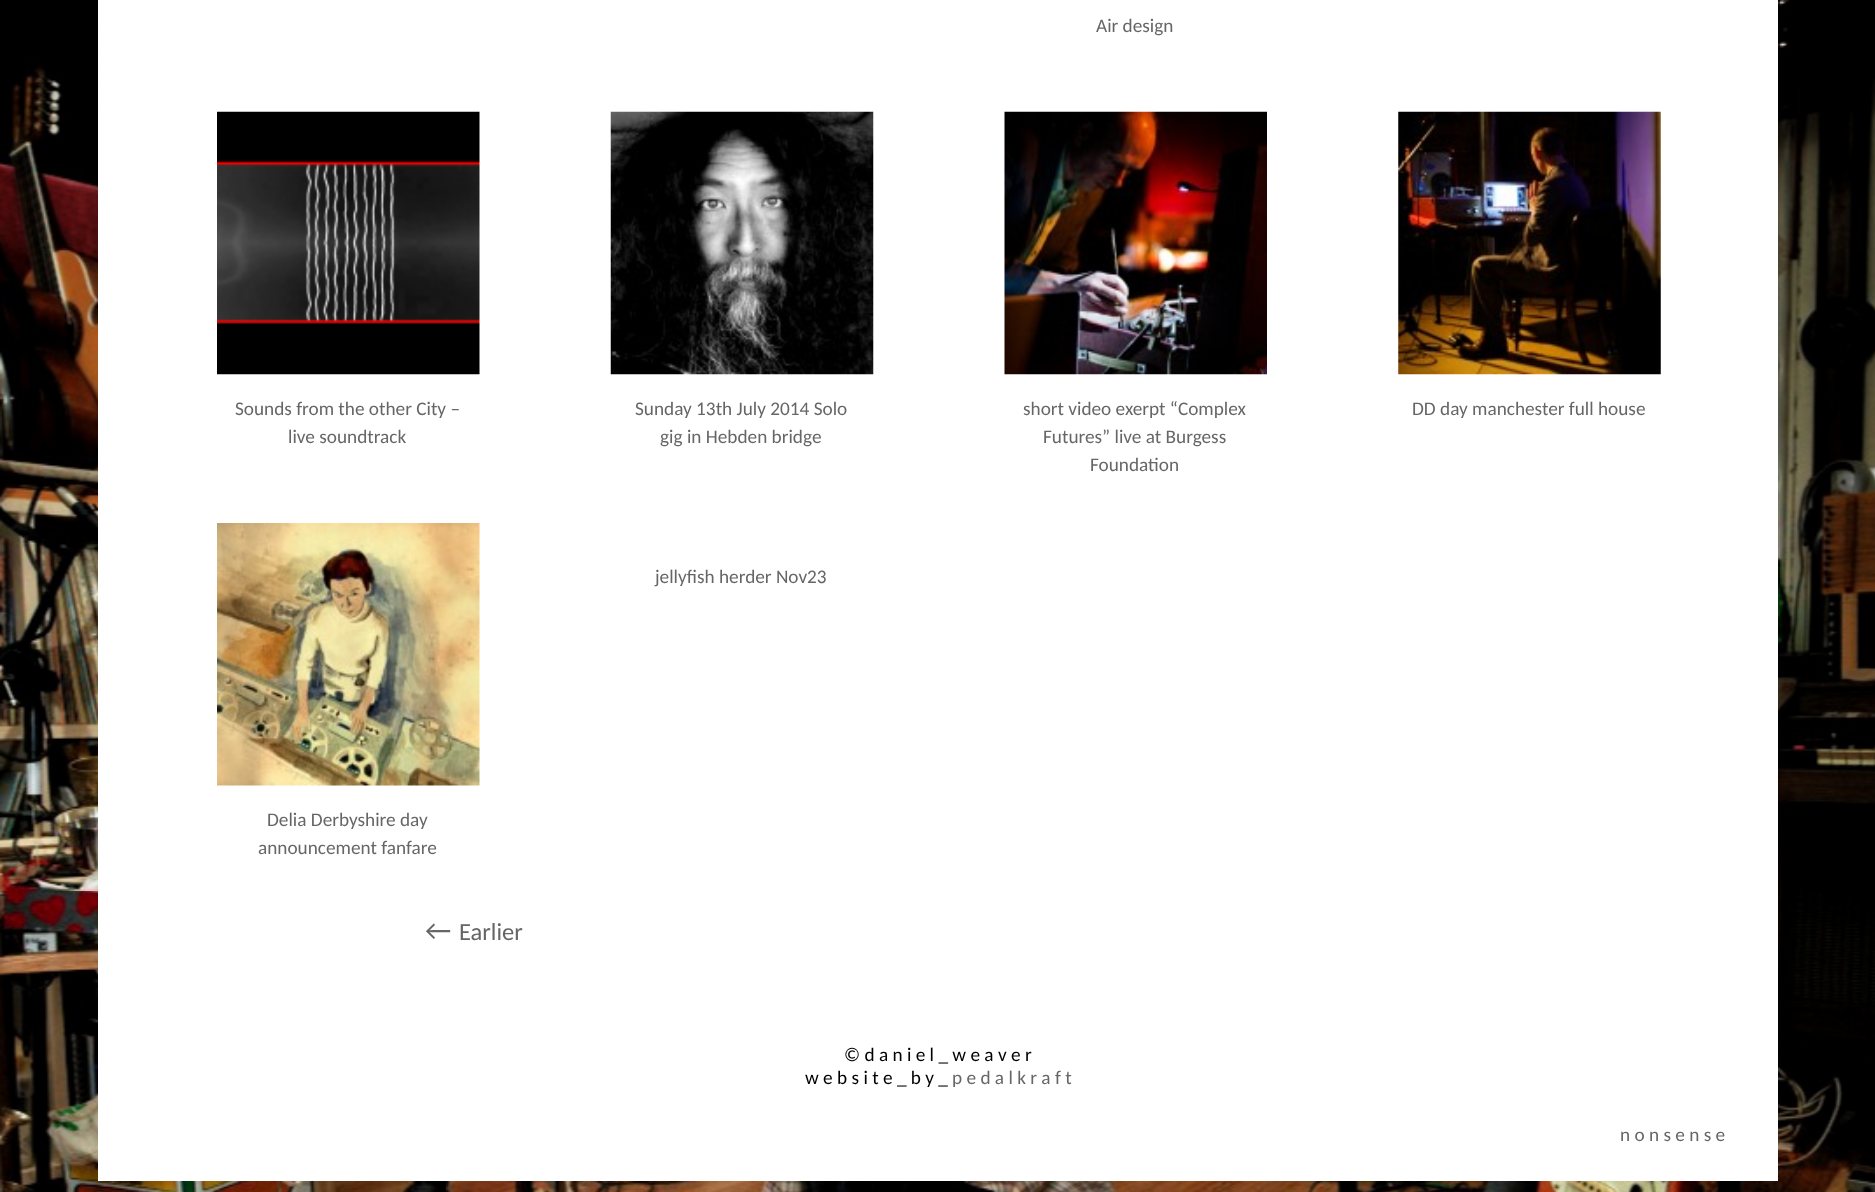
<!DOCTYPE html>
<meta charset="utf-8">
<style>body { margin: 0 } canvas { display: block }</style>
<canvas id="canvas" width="1875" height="1192"></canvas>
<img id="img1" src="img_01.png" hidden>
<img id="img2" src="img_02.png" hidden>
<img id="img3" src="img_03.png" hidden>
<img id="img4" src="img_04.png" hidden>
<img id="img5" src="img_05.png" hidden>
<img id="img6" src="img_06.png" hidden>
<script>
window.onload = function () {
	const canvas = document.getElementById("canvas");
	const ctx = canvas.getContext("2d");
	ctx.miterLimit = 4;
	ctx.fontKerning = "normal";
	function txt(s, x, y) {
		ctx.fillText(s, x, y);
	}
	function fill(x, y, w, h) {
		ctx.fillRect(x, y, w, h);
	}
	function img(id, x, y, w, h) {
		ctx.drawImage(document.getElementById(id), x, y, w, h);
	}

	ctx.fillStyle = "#FFFFFF";
	fill(0, 0, 1875, 1192);
	img("img1", 0, 0, 1875, 1192);
	fill(98, 0, 1680, 1181);
	img("img2", 217, 111, 263, 264);
	img("img3", 610, 111, 264, 264);
	img("img4", 1004, 111, 263, 264);
	img("img5", 1398, 111, 263, 264);
	img("img6", 217, 523, 263, 263);
	ctx.font = "19.25px Carlito";
	ctx.fillStyle = "#666666";
	txt("Air design", 1096, 32);
	txt("Sounds from the other City –", 235, 415);
	txt("live soundtrack", 288, 443);
	txt("Sunday 13th July 2014 Solo", 635, 415);
	txt("gig in Hebden bridge", 660, 443);
	txt("short video exerpt “Complex", 1023, 415);
	txt("Futures” live at Burgess", 1043, 443);
	txt("Foundation", 1090, 471);
	txt("DD day manchester full house", 1412, 415);
	txt("jellyfish herder Nov23", 655, 583);
	txt("Delia Derbyshire day", 267, 826);
	txt("announcement fanfare", 258, 854);
	ctx.font = "29px Carlito";
	txt("←", 425, 940);
	ctx.font = "24.5px Carlito";
	txt("Earlier", 459, 940);
	ctx.font = "19.25px Carlito";
	ctx.fillStyle = "#000000";
	txt("© d a n i e l _ w e a v e r", 844, 1061);
	txt("w e b s i t e _ b y _", 805, 1084);
	ctx.fillStyle = "#666666";
	txt("p e d a l k r a f t", 952, 1084);
	txt("n o n s e n s e", 1620, 1141);
};
</script>
